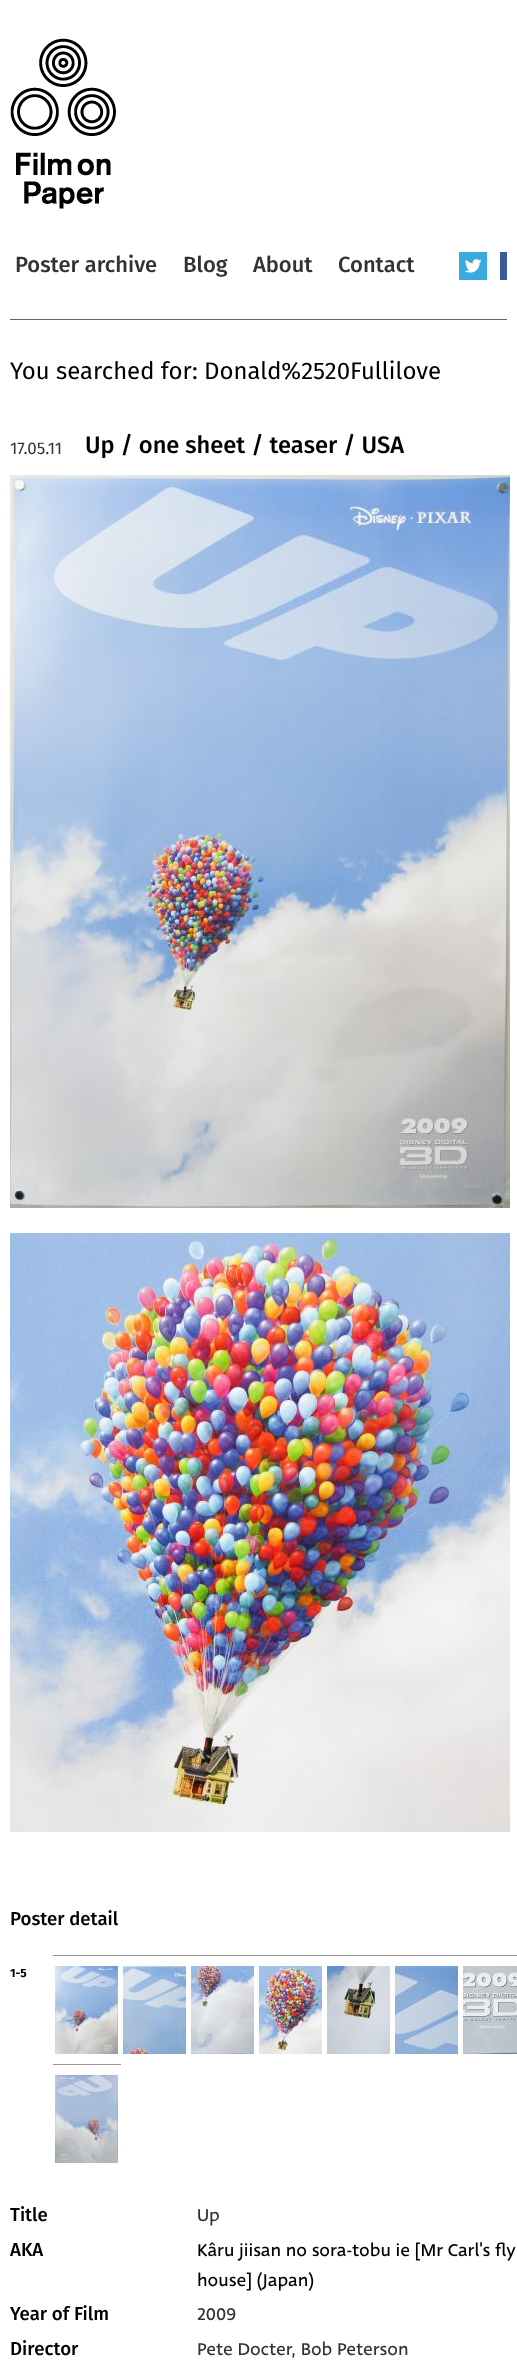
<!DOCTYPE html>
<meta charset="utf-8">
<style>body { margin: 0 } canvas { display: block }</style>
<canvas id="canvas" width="517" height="2373"></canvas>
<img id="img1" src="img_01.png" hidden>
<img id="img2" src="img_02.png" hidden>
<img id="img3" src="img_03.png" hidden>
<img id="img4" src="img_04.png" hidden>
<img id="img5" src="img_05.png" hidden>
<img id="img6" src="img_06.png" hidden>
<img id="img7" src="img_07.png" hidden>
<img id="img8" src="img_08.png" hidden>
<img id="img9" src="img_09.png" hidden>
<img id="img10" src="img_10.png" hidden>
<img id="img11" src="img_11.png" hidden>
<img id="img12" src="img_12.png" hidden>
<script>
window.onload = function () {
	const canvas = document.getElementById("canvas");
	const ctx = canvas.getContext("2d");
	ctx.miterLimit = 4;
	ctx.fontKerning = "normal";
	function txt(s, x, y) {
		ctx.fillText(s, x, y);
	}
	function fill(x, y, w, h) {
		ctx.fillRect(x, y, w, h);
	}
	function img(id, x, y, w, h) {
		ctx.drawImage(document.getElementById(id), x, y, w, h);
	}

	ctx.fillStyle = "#FFFFFF";
	fill(0, 0, 517, 2373);
	img("img1", 10, 38, 106, 171);
	ctx.fillStyle = "#666666";
	fill(10, 319, 497, 1);
	img("img2", 459, 252, 28, 28);
	ctx.fillStyle = "#3B5998";
	fill(500, 252, 7, 28);
	img("img3", 10, 475, 500, 733);
	img("img4", 10, 1233, 500, 599);
	ctx.fillStyle = "#9C9996";
	fill(53, 1955, 464, 1);
	img("img5", 55, 1966, 63, 88);
	img("img6", 123, 1966, 63, 88);
	img("img7", 191, 1966, 63, 88);
	img("img8", 259, 1966, 63, 88);
	img("img9", 327, 1966, 63, 88);
	img("img10", 395, 1966, 63, 88);
	img("img11", 463, 1966, 54, 88);
	fill(53, 2064, 68, 1);
	img("img12", 55, 2075, 63, 88);
	ctx.font = "500 22px Fira Sans";
	ctx.fillStyle = "#333333";
	txt("Poster archive", 15, 272);
	txt("Blog", 183, 272);
	txt("About", 253, 272);
	txt("Contact", 338, 272);
	ctx.font = "24px Fira Sans";
	ctx.fillStyle = "#000000";
	txt("You searched for: Donald%2520Fullilove", 10, 379);
	ctx.font = "17px Fira Sans";
	ctx.fillStyle = "#333333";
	txt("17.05.11", 10, 454);
	ctx.font = "500 23.75px Fira Sans";
	ctx.fillStyle = "#000000";
	txt("Up / one sheet / teaser / USA", 85, 453);
	ctx.font = "500 18.7px Fira Sans";
	txt("Poster detail", 10, 1925);
	ctx.font = "bold 12px Fira Sans";
	txt("1-5", 10, 1977);
	ctx.font = "500 18.7px Fira Sans";
	txt("Title", 10, 2221);
	ctx.font = "18.7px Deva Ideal";
	ctx.fillStyle = "#333333";
	txt("Up", 197, 2221);
	ctx.font = "500 18.7px Fira Sans";
	ctx.fillStyle = "#000000";
	txt("AKA", 10, 2256);
	ctx.font = "18.7px Deva Ideal";
	txt("Kâru jiisan no sora-tobu ie [Mr Carl's fly", 197, 2256);
	txt("house] (Japan)", 197, 2286);
	ctx.font = "500 18.7px Fira Sans";
	txt("Year of Film", 10, 2320);
	ctx.font = "18.7px Deva Ideal";
	ctx.fillStyle = "#333333";
	txt("2009", 197, 2320);
	ctx.font = "500 18.7px Fira Sans";
	ctx.fillStyle = "#000000";
	txt("Director", 10, 2355);
	ctx.font = "18.7px Deva Ideal";
	ctx.fillStyle = "#333333";
	txt("Pete Docter, Bob Peterson", 197, 2355);
};
</script>
